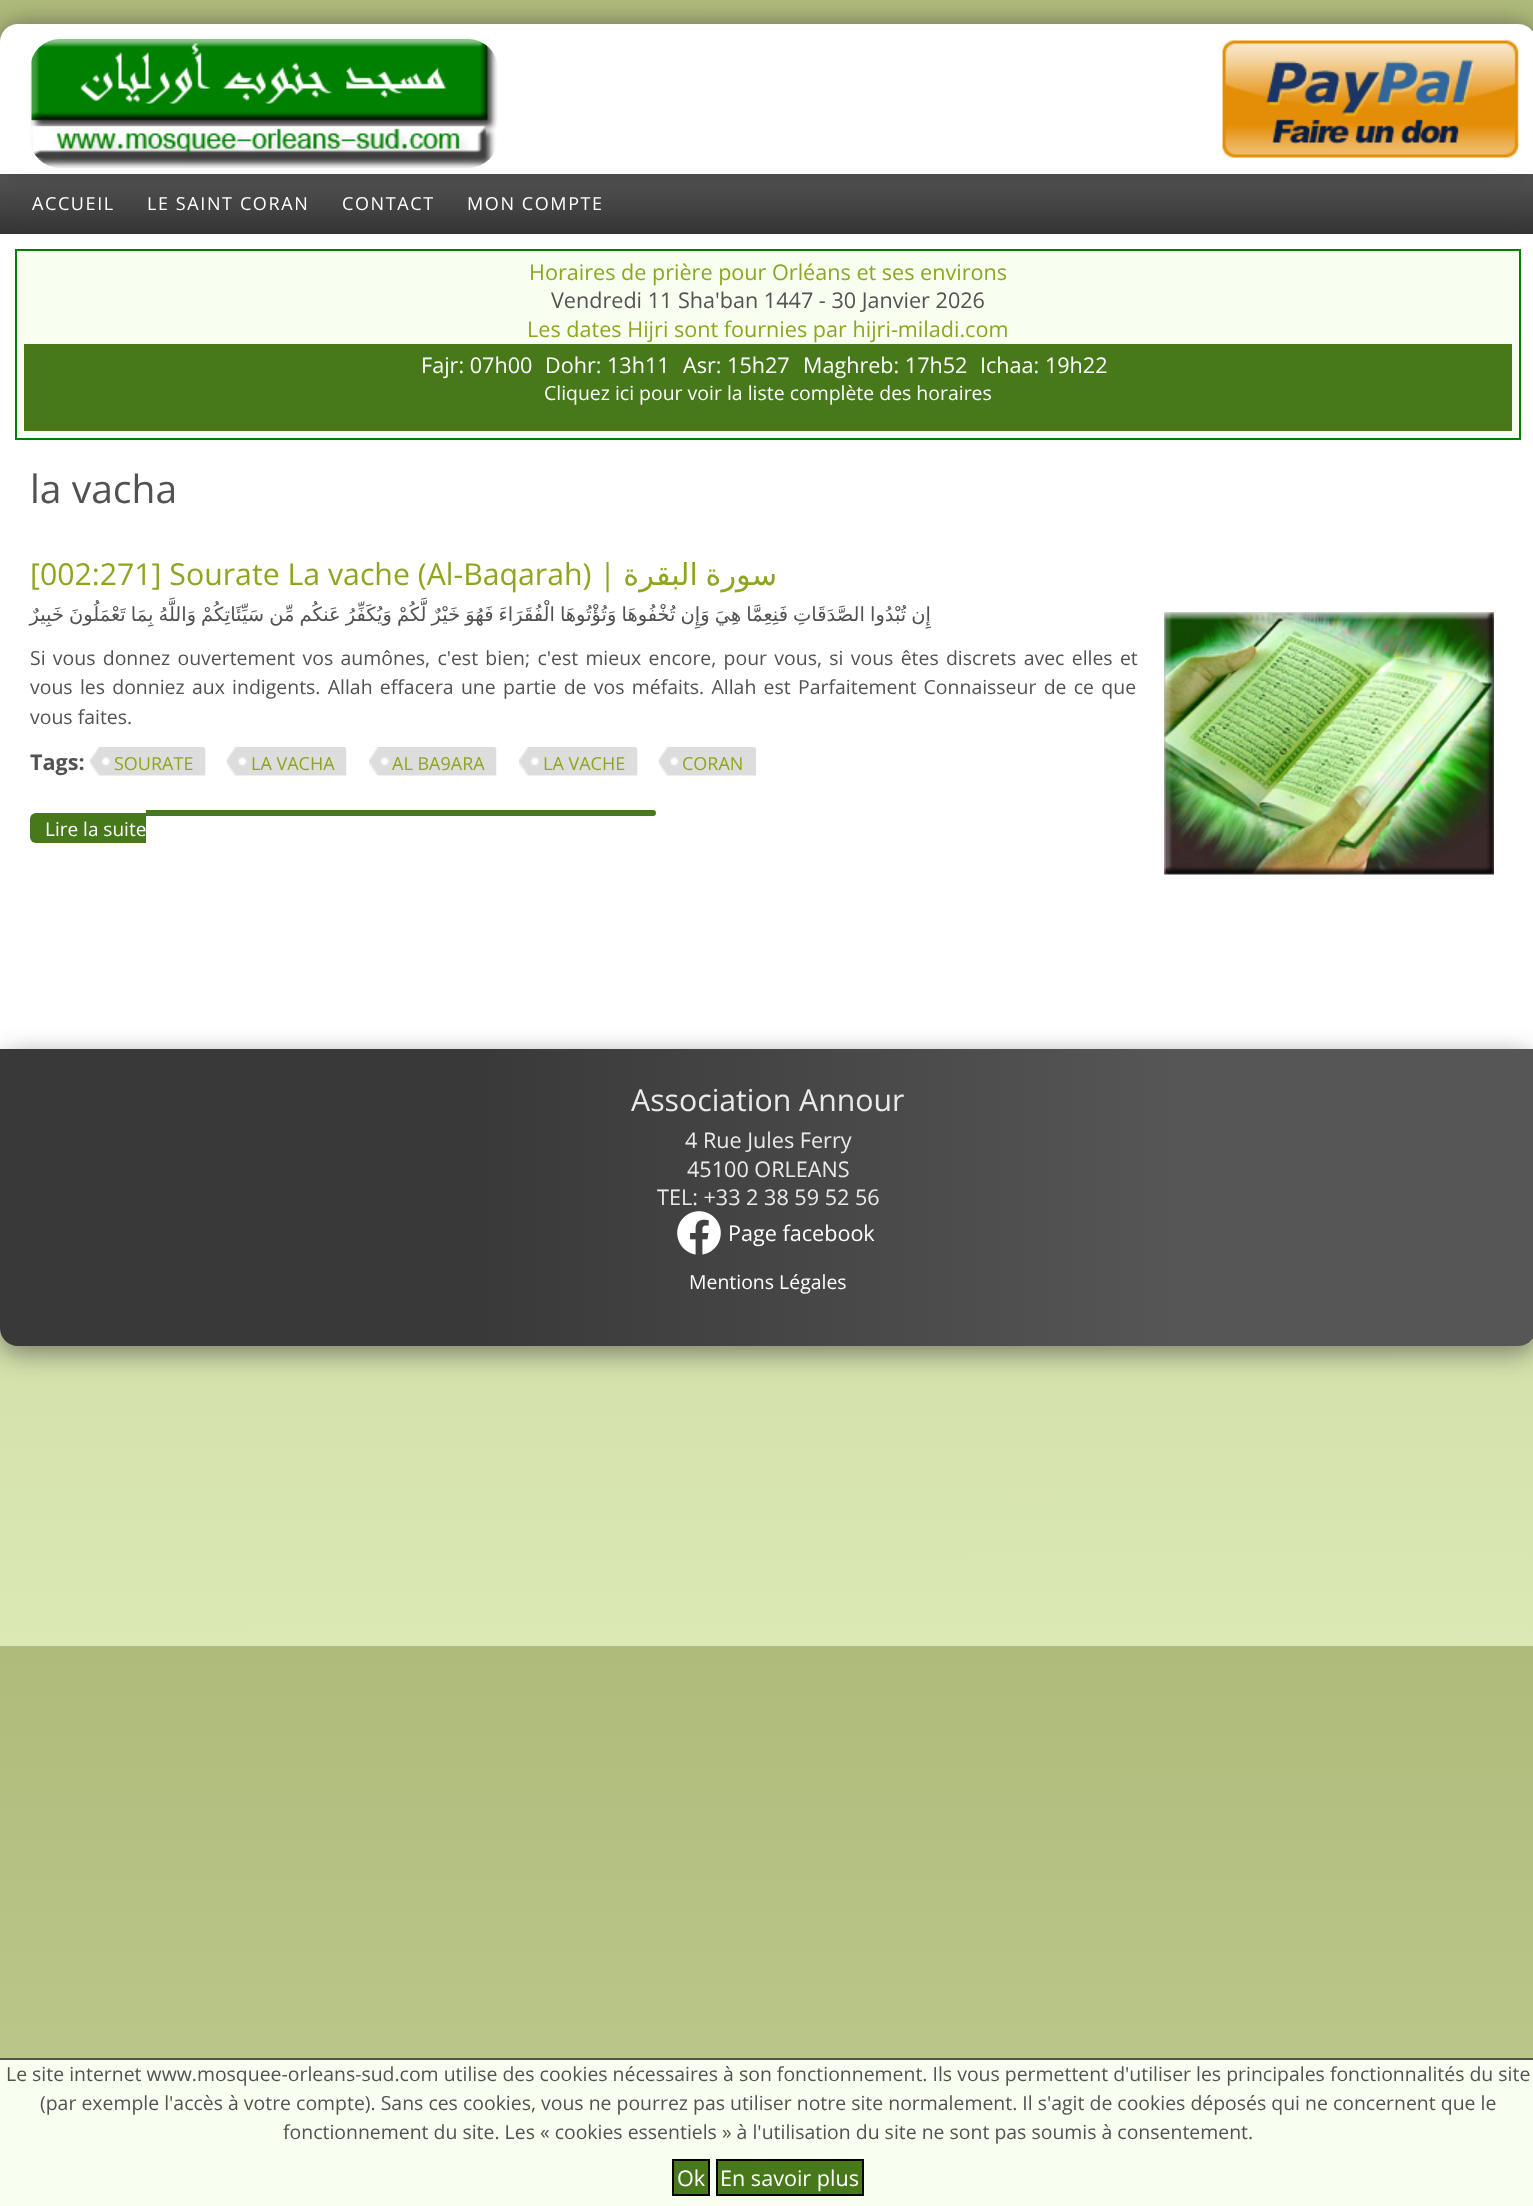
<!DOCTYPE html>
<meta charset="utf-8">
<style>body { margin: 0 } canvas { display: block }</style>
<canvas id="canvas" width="1533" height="2206"></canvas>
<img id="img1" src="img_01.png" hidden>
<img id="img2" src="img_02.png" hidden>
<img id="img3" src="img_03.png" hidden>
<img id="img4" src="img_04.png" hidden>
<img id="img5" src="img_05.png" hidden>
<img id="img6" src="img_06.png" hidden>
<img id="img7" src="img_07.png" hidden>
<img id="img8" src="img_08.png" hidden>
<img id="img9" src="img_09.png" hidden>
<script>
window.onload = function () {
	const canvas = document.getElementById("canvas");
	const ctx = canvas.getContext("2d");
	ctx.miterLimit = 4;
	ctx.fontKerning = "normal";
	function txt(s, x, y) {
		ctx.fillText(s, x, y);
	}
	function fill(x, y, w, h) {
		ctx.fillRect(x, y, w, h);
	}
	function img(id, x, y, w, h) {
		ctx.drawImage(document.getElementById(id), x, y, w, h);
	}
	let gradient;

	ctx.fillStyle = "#FFFFFF";
	fill(0, 0, 1533, 2206);
	gradient = ctx.createLinearGradient(766, 0, 767, 1646);
	gradient.addColorStop(0, "#AFBB7A");
	gradient.addColorStop(1, "#DBE9B6");
	ctx.fillStyle = gradient;
	fill(0, 0, 1533, 1646);
	gradient = ctx.createLinearGradient(766, 1646, 767, 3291);
	gradient.addColorStop(0, "#AFBB7A");
	gradient.addColorStop(1, "#DBE9B6");
	ctx.fillStyle = gradient;
	fill(0, 1646, 1533, 412);
	gradient = ctx.createLinearGradient(768, 174, 768, 237);
	gradient.addColorStop(0, "#555555");
	gradient.addColorStop(1, "#333333");
	ctx.fillStyle = gradient;
	fill(0, 174, 1533, 60);
	ctx.fillStyle = "rgba(50, 50, 50, 0.56)";
	ctx.filter = "blur(13px)";
	ctx.beginPath();
	ctx.roundRect(0, 24, 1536, 150, 18);
	ctx.fill();
	ctx.filter = "none";
	ctx.fillStyle = "#FFFFFF";
	ctx.beginPath();
	ctx.moveTo(18, 24);
	ctx.lineTo(1518, 24);
	ctx.bezierCurveTo(1528, 24, 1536, 32, 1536, 42);
	ctx.lineTo(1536, 174);
	ctx.lineTo(0, 174);
	ctx.lineTo(0, 42);
	ctx.bezierCurveTo(0, 32, 8, 24, 18, 24);
	ctx.closePath();
	ctx.fill();
	img("img1", 30, 39, 468, 129);
	img("img2", 1222, 40, 297, 118);
	ctx.fillStyle = "rgba(50, 50, 50, 0.56)";
	ctx.filter = "blur(13px)";
	ctx.beginPath();
	ctx.rect(0, 242, 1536, 814);
	ctx.fill();
	ctx.filter = "none";
	ctx.fillStyle = "#FFFFFF";
	fill(0, 234, 1533, 815);
	ctx.fillStyle = "#F8FFF0";
	ctx.beginPath();
	ctx.rect(16, 250, 1504, 189);
	ctx.fill();
	ctx.strokeStyle = "#008000";
	ctx.lineWidth = 2;
	ctx.stroke();
	ctx.fillStyle = "#47791B";
	fill(24, 344, 1488, 87);
	img("img3", 1164, 612, 330, 263);
	img("img4", 90, 747, 116, 29);
	img("img5", 226, 747, 121, 29);
	img("img6", 369, 747, 128, 29);
	img("img7", 519, 747, 119, 29);
	img("img8", 658, 747, 98, 29);
	ctx.beginPath();
	ctx.roundRect(30, 813, 116, 30, [6, 0, 0, 6]);
	ctx.fill();
	ctx.beginPath();
	ctx.roundRect(146, 810, 510, 6, [0, 3, 3, 0]);
	ctx.fill();
	ctx.fillStyle = "rgba(50, 50, 50, 0.56)";
	ctx.filter = "blur(13px)";
	ctx.beginPath();
	ctx.roundRect(0, 1056, 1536, 297, 18);
	ctx.fill();
	ctx.filter = "none";
	gradient = ctx.createLinearGradient(0, 1197, 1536, 1197);
	gradient.addColorStop(0.31, "#393939");
	gradient.addColorStop(0.77, "#565656");
	ctx.fillStyle = gradient;
	ctx.beginPath();
	ctx.moveTo(0, 1049);
	ctx.lineTo(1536, 1049);
	ctx.lineTo(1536, 1328);
	ctx.bezierCurveTo(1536, 1338, 1528, 1346, 1518, 1346);
	ctx.lineTo(18, 1346);
	ctx.bezierCurveTo(8, 1346, 0, 1338, 0, 1328);
	ctx.closePath();
	ctx.fill();
	img("img9", 677, 1211, 44, 44);
	ctx.fillStyle = "#F8FFF0";
	fill(0, 2060, 1533, 146);
	ctx.fillStyle = "#525252";
	fill(0, 2058, 1533, 2);
	ctx.fillStyle = "#47791B";
	ctx.beginPath();
	ctx.rect(673, 2160, 36, 35);
	ctx.fill();
	ctx.strokeStyle = "#000000";
	ctx.stroke();
	ctx.beginPath();
	ctx.rect(717, 2160, 146, 35);
	ctx.fill();
	ctx.stroke();
	ctx.letterSpacing = "1.6px";
	ctx.font = "18px Open Sans";
	ctx.fillStyle = "#FFFFFF";
	txt("ACCUEIL", 32, 210);
	txt("LE SAINT CORAN", 147, 210);
	txt("CONTACT", 342, 210);
	txt("MON COMPTE", 467, 210);
	ctx.letterSpacing = "0px";
	ctx.font = "21.6px Open Sans";
	ctx.fillStyle = "#8EA61F";
	txt("Horaires de prière pour Orléans et ses environs", 529, 280);
	ctx.fillStyle = "#525252";
	txt("Vendredi 11 Sha'ban 1447 - 30 Janvier 2026", 551, 308);
	ctx.fillStyle = "#8EA61F";
	txt("Les dates Hijri sont fournies par hijri-miladi.com", 527, 337);
	ctx.fillStyle = "#FFFFFF";
	txt("Fajr: 07h00", 421, 373);
	txt("Dohr: 13h11", 545, 373);
	txt("Asr: 15h27", 683, 373);
	txt("Maghreb: 17h52", 803, 373);
	txt("Ichaa: 19h22", 980, 373);
	ctx.font = "19.45px Open Sans";
	txt("Cliquez ici pour voir la liste complète des horaires", 544, 400);
	ctx.font = "39px Open Sans";
	ctx.fillStyle = "#525252";
	txt("la vacha", 30, 503);
	ctx.font = "30.25px Open Sans";
	ctx.fillStyle = "#8EA61F";
	txt("[002:271] Sourate La vache (Al-Baqarah) |", 30, 585);
	ctx.wordSpacing = "-2px";
	ctx.direction = "rtl";
	ctx.font = "30.25px DejaVu Sans";
	txt("سورة البقرة", 777, 585);
	ctx.wordSpacing = "-1.1px";
	ctx.font = "19.45px DejaVu Sans";
	ctx.fillStyle = "#525252";
	txt("إِن تُبْدُوا الصَّدَقَاتِ فَنِعِمَّا هِيَ وَإِن تُخْفُوهَا وَتُؤْتُوهَا الْفُقَرَاءَ فَهُوَ خَيْرٌ لَّكُمْ وَيُكَفِّرُ عَنكُم مِّن سَيِّئَاتِكُمْ وَاللَّهُ بِمَا تَعْمَلُونَ خَبِيرٌ", 931, 621);
	ctx.wordSpacing = "2.25px";
	ctx.direction = "ltr";
	ctx.font = "19.45px Open Sans";
	txt("Si vous donnez ouvertement vos aumônes, c'est bien; c'est mieux encore, pour vous, si vous êtes discrets avec elles et", 30, 665);
	txt("vous les donniez aux indigents. Allah effacera une partie de vos méfaits. Allah est Parfaitement Connaisseur de ce que", 30, 694);
	ctx.wordSpacing = "0px";
	txt("vous faites.", 30, 724);
	ctx.font = "bold 21.6px Open Sans";
	txt("Tags:", 30, 770);
	ctx.font = "18px Open Sans";
	ctx.fillStyle = "#8EA61F";
	txt("SOURATE", 114, 770);
	txt("LA VACHA", 251, 770);
	txt("AL BA9ARA", 392, 770);
	txt("LA VACHE", 543, 770);
	txt("CORAN", 682, 770);
	ctx.font = "19px Open Sans";
	ctx.fillStyle = "#FFFFFF";
	txt("Lire la suite", 45, 836);
	ctx.font = "30.25px Open Sans";
	ctx.fillStyle = "#EAEAEA";
	txt("Association Annour", 631, 1111);
	ctx.font = "21.6px Open Sans";
	txt("4 Rue Jules Ferry", 685, 1148);
	txt("45100 ORLEANS", 687, 1177);
	txt("TEL: +33 2 38 59 52 56", 657, 1205);
	ctx.fillStyle = "#FFFFFF";
	txt("Page facebook", 728, 1241);
	ctx.font = "19.45px Open Sans";
	txt("Mentions Légales", 689, 1289);
	ctx.fillStyle = "#525252";
	txt("Le site internet www.mosquee-orleans-sud.com utilise des cookies nécessaires à son fonctionnement. Ils vous permettent d'utiliser les principales fonctionnalités du site", 6, 2081);
	txt("(par exemple l'accès à votre compte). Sans ces cookies, vous ne pourrez pas utiliser notre site normalement. Il s'agit de cookies déposés qui ne concernent que le", 40, 2110);
	txt("fonctionnement du site. Les « cookies essentiels » à l'utilisation du site ne sont pas soumis à consentement.", 283, 2139);
	ctx.font = "21.6px Open Sans";
	ctx.fillStyle = "#FFFFFF";
	txt("Ok", 677, 2186);
	txt("En savoir plus", 720, 2186);
};
</script>
